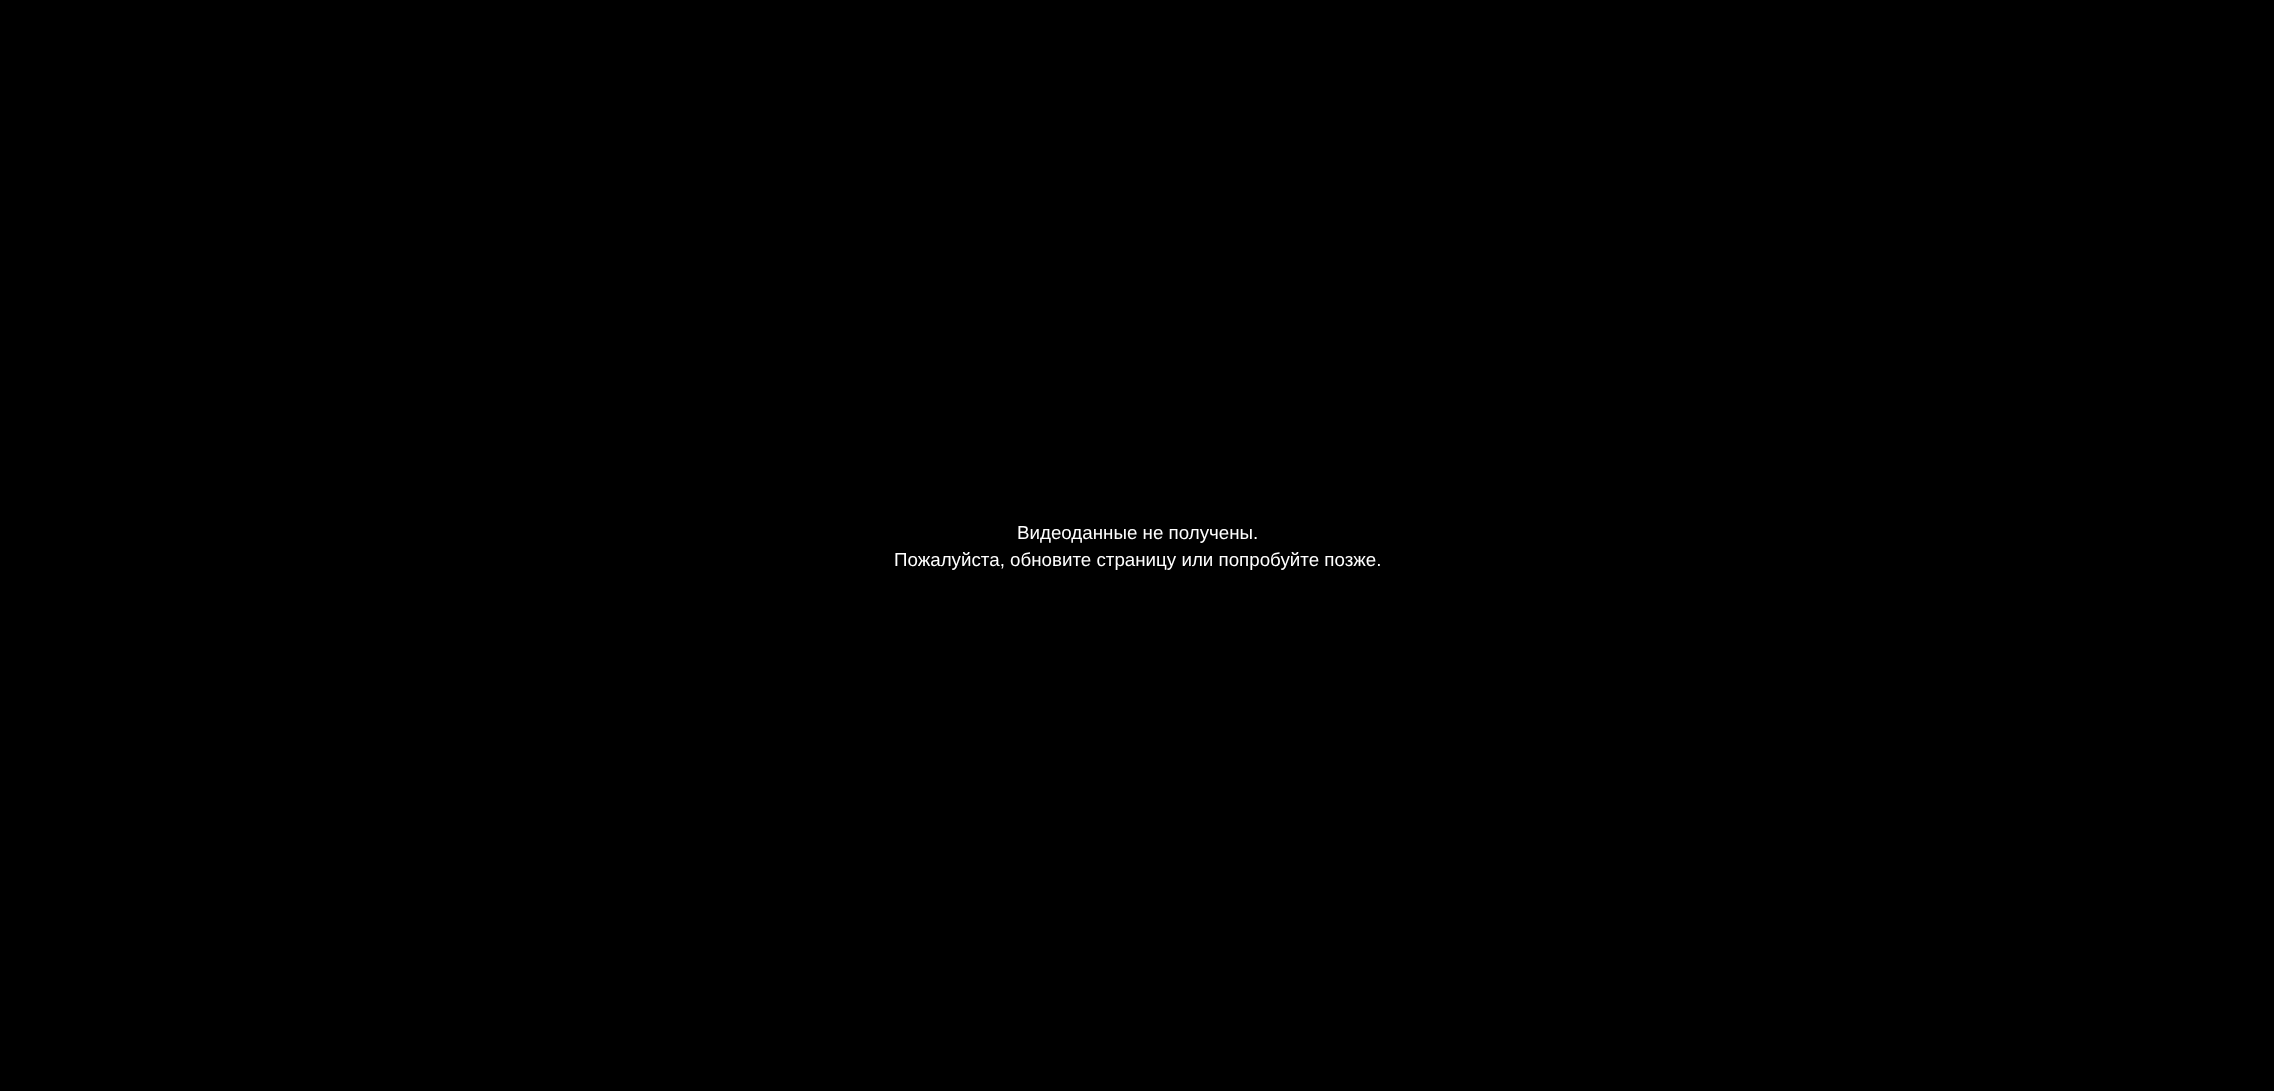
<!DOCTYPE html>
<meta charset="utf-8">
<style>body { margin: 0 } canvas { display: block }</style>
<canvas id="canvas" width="2274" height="1091"></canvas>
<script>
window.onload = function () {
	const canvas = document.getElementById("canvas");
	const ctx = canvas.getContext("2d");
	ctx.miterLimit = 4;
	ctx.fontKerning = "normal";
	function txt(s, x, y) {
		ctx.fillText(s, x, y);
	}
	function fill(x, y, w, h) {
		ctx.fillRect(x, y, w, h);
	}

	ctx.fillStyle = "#000000";
	fill(0, 0, 2274, 1091);
	ctx.font = "18.75px Liberation Sans";
	ctx.fillStyle = "#FFFFFF";
	txt("Видеоданные не получены.", 1017, 539);
	txt("Пожалуйста, обновите страницу или попробуйте позже.", 894, 566);
};
</script>
